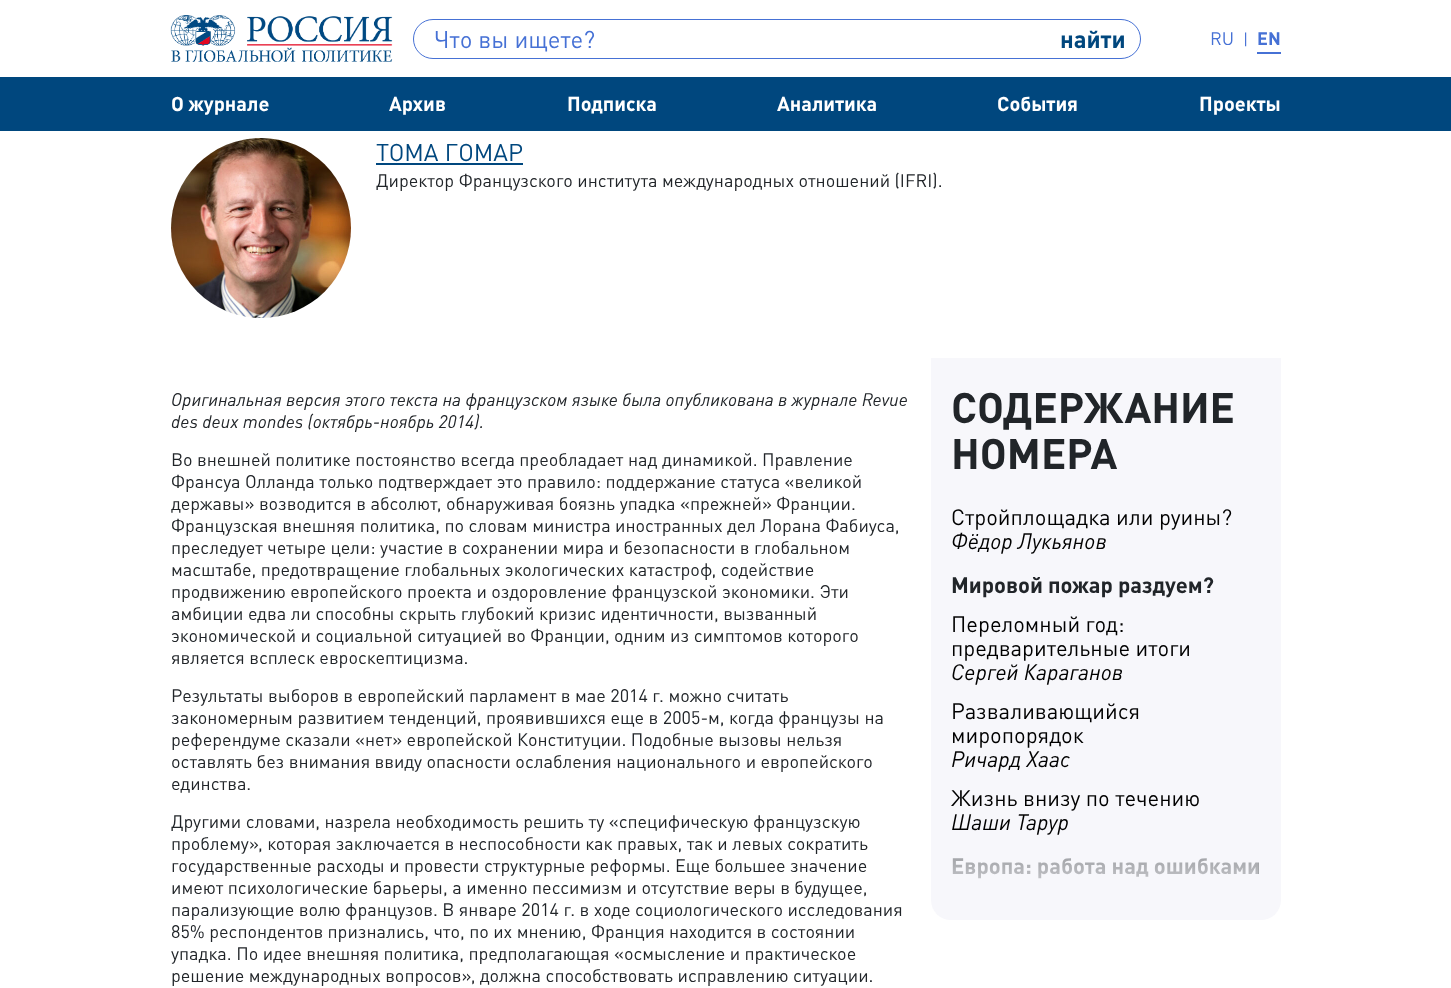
<!DOCTYPE html>
<meta charset="utf-8">
<style>body { margin: 0 } canvas { display: block }</style>
<canvas id="canvas" width="1451" height="988"></canvas>
<img id="img1" src="img_01.png" hidden>
<img id="img2" src="img_02.png" hidden>
<script>
window.onload = function () {
	const canvas = document.getElementById("canvas");
	const ctx = canvas.getContext("2d");
	ctx.miterLimit = 4;
	ctx.fontKerning = "normal";
	function txt(s, x, y) {
		ctx.fillText(s, x, y);
	}
	function fill(x, y, w, h) {
		ctx.fillRect(x, y, w, h);
	}
	function img(id, x, y, w, h) {
		ctx.drawImage(document.getElementById(id), x, y, w, h);
	}
	let gradient;

	ctx.fillStyle = "#FFFFFF";
	fill(0, 0, 1451, 988);
	img("img1", 170, 15, 223, 47);
	ctx.beginPath();
	ctx.roundRect(413.5, 19.5, 727, 39, 19.5);
	ctx.strokeStyle = "#4671D5";
	ctx.stroke();
	ctx.fillStyle = "#4671D5";
	fill(1257, 52, 24, 2);
	ctx.fillStyle = "#00477E";
	fill(0, 77, 1451, 54);
	img("img2", 171, 138, 180, 180);
	fill(376, 163, 147, 2);
	ctx.fillStyle = "#F7F7FB";
	ctx.beginPath();
	ctx.roundRect(931, 358, 350, 562, [0, 0, 20, 20]);
	ctx.fill();
	ctx.font = "24px DIN";
	ctx.fillStyle = "#4671D5";
	txt("Что вы ищете?", 434, 48);
	ctx.font = "bold 24px DIN";
	ctx.fillStyle = "#00477E";
	txt("найти", 1060, 48);
	ctx.font = "18px DIN";
	ctx.fillStyle = "#4671D5";
	txt("RU", 1210, 45);
	ctx.font = "16px DIN";
	txt("|", 1243, 45);
	ctx.font = "bold 18px DIN";
	txt("EN", 1257, 45);
	ctx.font = "bold 20px DIN";
	ctx.fillStyle = "#FFFFFF";
	txt("О журнале", 171, 111);
	txt("Архив", 389, 111);
	txt("Подписка", 567, 111);
	txt("Аналитика", 777, 111);
	txt("События", 997, 111);
	txt("Проекты", 1199, 111);
	ctx.font = "24px DIN";
	ctx.fillStyle = "#00477E";
	txt("ТОМА ГОМАР", 376, 161);
	ctx.font = "18px DIN";
	ctx.fillStyle = "#212529";
	txt("Директор Французского института международных отношений (IFRI).", 376, 187);
	ctx.font = "italic 18px DIN";
	txt("Оригинальная версия этого текста на французском языке была опубликована в журнале Revue", 171, 406);
	txt("des deux mondes (октябрь-ноябрь 2014).", 171, 428);
	ctx.font = "18px DIN";
	txt("Во внешней политике постоянство всегда преобладает над динамикой. Правление", 171, 466);
	txt("Франсуа Олланда только подтверждает это правило: поддержание статуса «великой", 171, 488);
	txt("державы» возводится в абсолют, обнаруживая боязнь упадка «прежней» Франции.", 171, 510);
	txt("Французская внешняя политика, по словам министра иностранных дел Лорана Фабиуса,", 171, 532);
	txt("преследует четыре цели: участие в сохранении мира и безопасности в глобальном", 171, 554);
	txt("масштабе, предотвращение глобальных экологических катастроф, содействие", 171, 576);
	txt("продвижению европейского проекта и оздоровление французской экономики. Эти", 171, 598);
	txt("амбиции едва ли способны скрыть глубокий кризис идентичности, вызванный", 171, 620);
	txt("экономической и социальной ситуацией во Франции, одним из симптомов которого", 171, 642);
	txt("является всплеск евроскептицизма.", 171, 664);
	txt("Результаты выборов в европейский парламент в мае 2014 г. можно считать", 171, 702);
	txt("закономерным развитием тенденций, проявившихся еще в 2005-м, когда французы на", 171, 724);
	txt("референдуме сказали «нет» европейской Конституции. Подобные вызовы нельзя", 171, 746);
	txt("оставлять без внимания ввиду опасности ослабления национального и европейского", 171, 768);
	txt("единства.", 171, 790);
	txt("Другими словами, назрела необходимость решить ту «специфическую французскую", 171, 828);
	txt("проблему», которая заключается в неспособности как правых, так и левых сократить", 171, 850);
	txt("государственные расходы и провести структурные реформы. Еще большее значение", 171, 872);
	txt("имеют психологические барьеры, а именно пессимизм и отсутствие веры в будущее,", 171, 894);
	txt("парализующие волю французов. В январе 2014 г. в ходе социологического исследования", 171, 916);
	txt("85% респондентов признались, что, по их мнению, Франция находится в состоянии", 171, 938);
	txt("упадка. По идее внешняя политика, предполагающая «осмысление и практическое", 171, 960);
	txt("решение международных вопросов», должна способствовать исправлению ситуации.", 171, 982);
	ctx.font = "bold 42px DIN";
	txt("СОДЕРЖАНИЕ", 951, 423);
	txt("НОМЕРА", 951, 469);
	ctx.font = "22px DIN";
	ctx.fillStyle = "#000000";
	txt("Стройплощадка или руины?", 951, 525);
	ctx.font = "italic 22px DIN";
	txt("Фёдор Лукьянов", 951, 549);
	ctx.font = "bold 22px DIN";
	ctx.fillStyle = "#212529";
	txt("Мировой пожар раздуем?", 951, 593);
	ctx.font = "22px DIN";
	ctx.fillStyle = "#000000";
	txt("Переломный год:", 951, 632);
	txt("предварительные итоги", 951, 656);
	ctx.font = "italic 22px DIN";
	txt("Сергей Караганов", 951, 680);
	ctx.font = "22px DIN";
	txt("Разваливающийся", 951, 719);
	txt("миропорядок", 951, 743);
	ctx.font = "italic 22px DIN";
	txt("Ричард Хаас", 951, 767);
	ctx.font = "22px DIN";
	txt("Жизнь внизу по течению", 951, 806);
	ctx.font = "italic 22px DIN";
	txt("Шаши Тарур", 951, 830);
	ctx.font = "bold 22px DIN";
	ctx.fillStyle = "#212529";
	txt("Европа: работа над ошибками", 951, 874);
	gradient = ctx.createLinearGradient(1106, 920, 1106, 840);
	gradient.addColorStop(0, "#F7F7FB");
	gradient.addColorStop(0.8, "rgba(247, 247, 251, 0.6)");
	gradient.addColorStop(1, "rgba(247, 247, 251, 0)");
	ctx.fillStyle = gradient;
	fill(952, 858, 306, 21);
};
</script>
